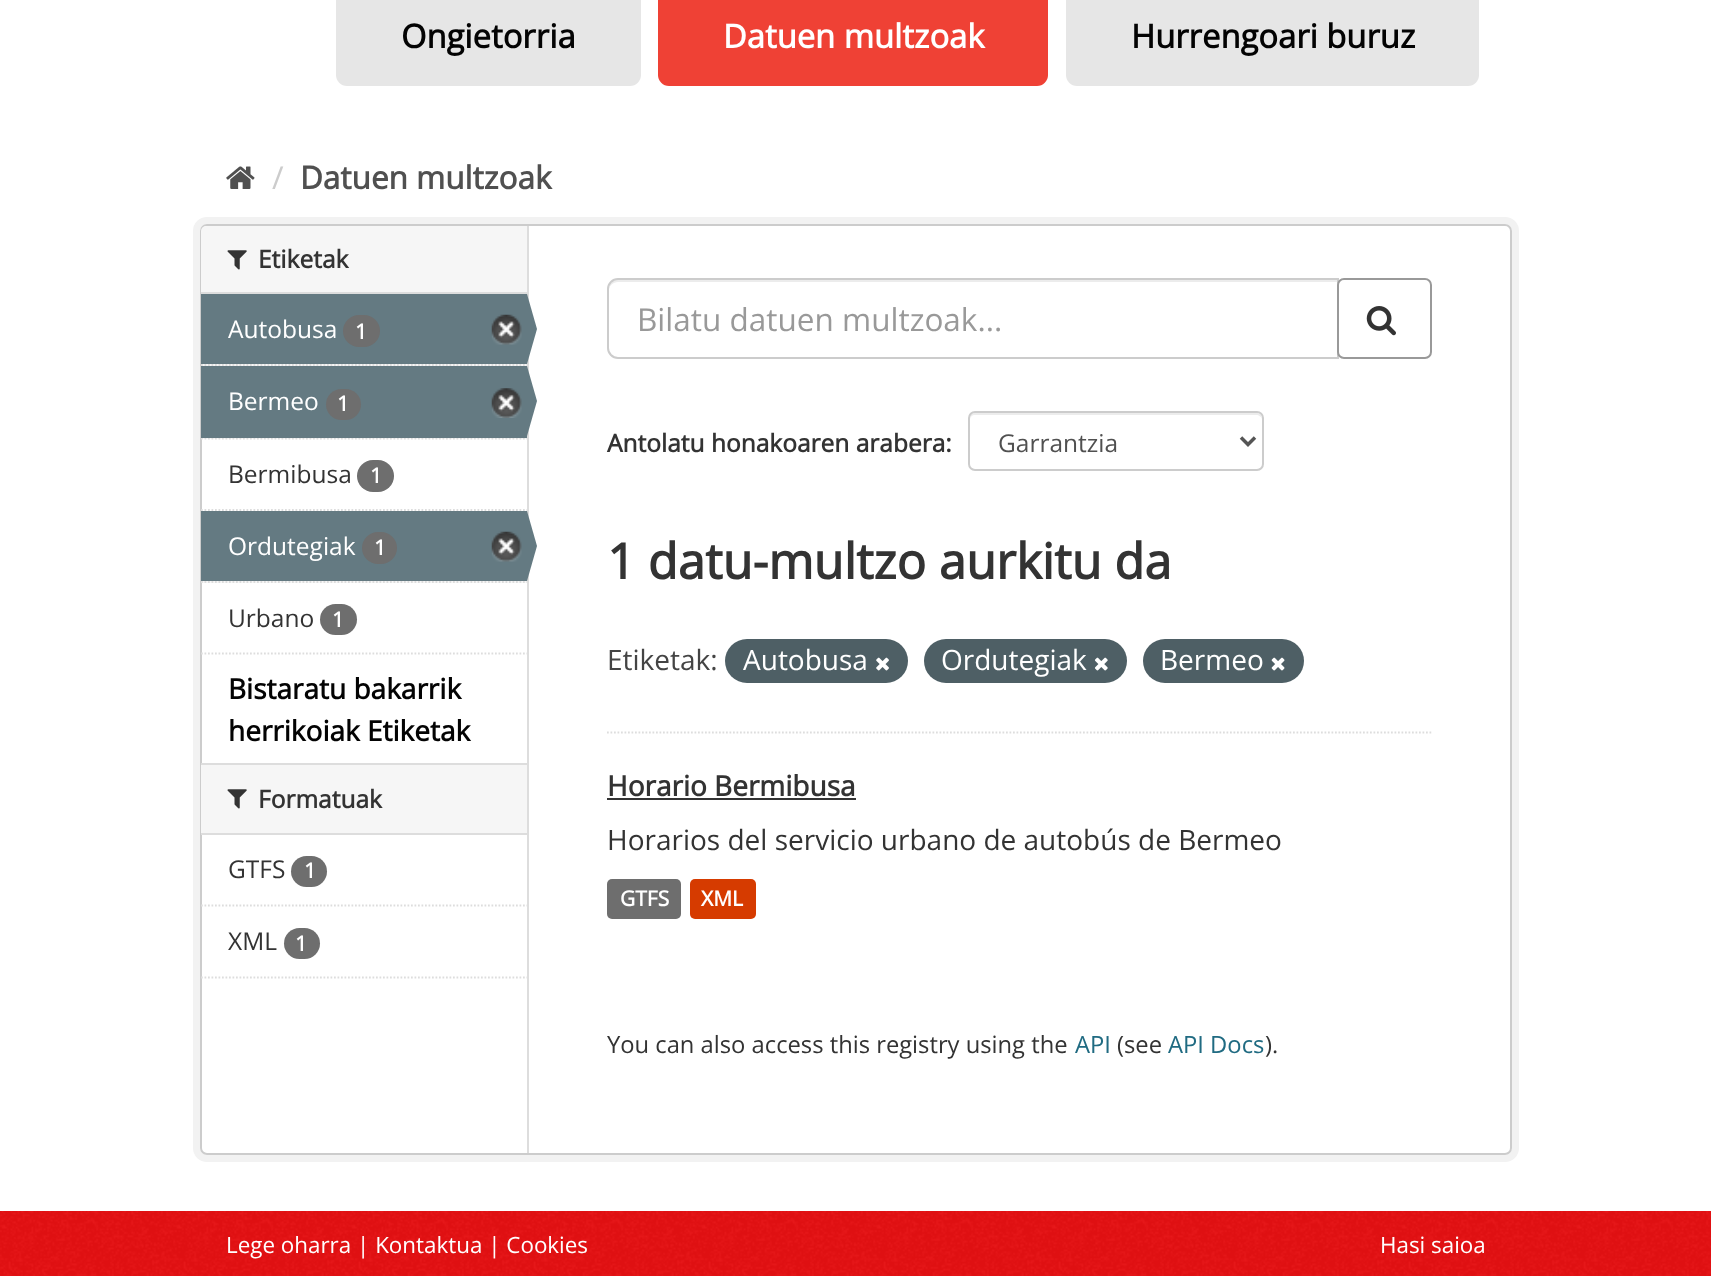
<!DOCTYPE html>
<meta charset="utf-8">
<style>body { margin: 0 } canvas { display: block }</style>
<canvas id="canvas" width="1711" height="1276"></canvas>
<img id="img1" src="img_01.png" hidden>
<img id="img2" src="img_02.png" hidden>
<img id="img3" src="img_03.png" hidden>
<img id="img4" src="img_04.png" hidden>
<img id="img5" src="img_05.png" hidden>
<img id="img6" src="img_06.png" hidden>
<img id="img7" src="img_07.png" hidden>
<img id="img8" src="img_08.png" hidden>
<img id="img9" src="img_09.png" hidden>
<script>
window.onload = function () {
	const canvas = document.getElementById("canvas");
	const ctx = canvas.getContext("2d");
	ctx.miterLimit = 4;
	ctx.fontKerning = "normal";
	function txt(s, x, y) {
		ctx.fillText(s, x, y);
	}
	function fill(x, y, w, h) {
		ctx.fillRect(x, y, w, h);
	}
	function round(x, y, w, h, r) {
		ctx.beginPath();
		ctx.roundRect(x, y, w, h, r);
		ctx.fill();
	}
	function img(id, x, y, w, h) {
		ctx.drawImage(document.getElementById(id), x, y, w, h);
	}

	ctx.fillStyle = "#FFFFFF";
	fill(0, 0, 1711, 1276);
	ctx.fillStyle = "#E6E6E6";
	round(336, -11, 305, 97, 11);
	ctx.fillStyle = "#EF4135";
	round(658, -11, 390, 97, 11);
	ctx.fillStyle = "#E6E6E6";
	round(1066, -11, 413, 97, 11);
	img("img1", 226, 166, 29, 23);
	ctx.beginPath();
	ctx.roundRect(196.5, 220.5, 1319, 938, 10.5);
	ctx.strokeStyle = "#F2F2F2";
	ctx.lineWidth = 7;
	ctx.stroke();
	ctx.fillStyle = "#FFFFFF";
	ctx.beginPath();
	ctx.roundRect(201, 225, 1310, 929, 6);
	ctx.fill();
	ctx.strokeStyle = "#CCCCCC";
	ctx.lineWidth = 2;
	ctx.stroke();
	ctx.fillStyle = "#F6F6F6";
	ctx.beginPath();
	ctx.roundRect(201, 226, 326, 68, [5, 0, 0, 0]);
	ctx.fill();
	ctx.fillStyle = "#DDDDDD";
	fill(201, 292, 326, 2);
	img("img2", 227, 250, 20, 20);
	ctx.fillStyle = "#F6F6F6";
	fill(201, 364, 326, 2);
	ctx.beginPath();
	ctx.moveTo(201, 365);
	ctx.lineTo(527, 365);
	ctx.strokeStyle = "#DDDDDD";
	ctx.lineWidth = 1.8;
	ctx.setLineDash([1.75, 1.75]);
	ctx.stroke();
	ctx.fillStyle = "#647A82";
	fill(201, 294, 326, 70);
	ctx.fillStyle = "#6E6E6E";
	round(343, 315, 37, 32, 16);
	img("img3", 491, 314, 31, 31);
	ctx.fillStyle = "#DDDDDD";
	fill(527, 226, 2, 927);
	ctx.fillStyle = "#647A82";
	ctx.beginPath();
	ctx.moveTo(527, 364);
	ctx.lineTo(527, 294);
	ctx.lineTo(537, 329);
	ctx.closePath();
	ctx.fill();
	ctx.fillStyle = "#F6F6F6";
	fill(202, 438, 325, 1);
	ctx.beginPath();
	ctx.moveTo(201, 438.5);
	ctx.lineTo(527, 438.5);
	ctx.stroke();
	ctx.fillStyle = "#647A82";
	fill(201, 366, 326, 72);
	ctx.fillStyle = "#6E6E6E";
	round(326, 389, 35, 31, 15.5);
	img("img4", 491, 388, 31, 30);
	ctx.fillStyle = "#647A82";
	ctx.beginPath();
	ctx.moveTo(527, 436);
	ctx.lineTo(527, 366);
	ctx.lineTo(537, 401);
	ctx.closePath();
	ctx.fill();
	ctx.beginPath();
	ctx.moveTo(201, 510);
	ctx.lineTo(527, 510);
	ctx.stroke();
	ctx.fillStyle = "#6E6E6E";
	round(357, 460, 37, 32, 16);
	ctx.fillStyle = "#F6F6F6";
	fill(201, 581, 326, 2);
	ctx.beginPath();
	ctx.moveTo(201, 582);
	ctx.lineTo(527, 582);
	ctx.stroke();
	ctx.fillStyle = "#647A82";
	fill(201, 511, 326, 70);
	ctx.fillStyle = "#6E6E6E";
	round(362, 532, 35, 32, 16);
	img("img3", 491, 531, 31, 31);
	ctx.fillStyle = "#647A82";
	ctx.beginPath();
	ctx.moveTo(527, 581);
	ctx.lineTo(527, 511);
	ctx.lineTo(537, 546);
	ctx.closePath();
	ctx.fill();
	ctx.fillStyle = "#6E6E6E";
	round(320, 604, 37, 31, 15.5);
	ctx.beginPath();
	ctx.moveTo(201, 653.5);
	ctx.lineTo(527, 653.5);
	ctx.stroke();
	ctx.fillStyle = "#F6F6F6";
	fill(201, 765, 326, 68);
	ctx.fillStyle = "#DDDDDD";
	fill(201, 763, 326, 2);
	fill(201, 833, 326, 2);
	img("img2", 227, 789, 20, 20);
	ctx.beginPath();
	ctx.moveTo(201, 905.5);
	ctx.lineTo(527, 905.5);
	ctx.stroke();
	ctx.fillStyle = "#6E6E6E";
	round(291, 856, 36, 31, 15.5);
	round(284, 928, 36, 31, 15.5);
	ctx.beginPath();
	ctx.moveTo(201, 977.5);
	ctx.lineTo(527, 977.5);
	ctx.stroke();
	ctx.beginPath();
	ctx.moveTo(607, 732.5);
	ctx.lineTo(1431.5, 732.5);
	ctx.stroke();
	ctx.fillStyle = "#ECECEC";
	ctx.beginPath();
	ctx.moveTo(618, 282);
	ctx.lineTo(1337, 282);
	ctx.lineTo(1337, 280);
	ctx.lineTo(618, 280);
	ctx.bezierCurveTo(613, 280, 609, 284, 609, 289);
	ctx.lineTo(609, 290);
	ctx.bezierCurveTo(609, 286, 613, 282, 618, 282);
	ctx.closePath();
	ctx.fill();
	ctx.beginPath();
	ctx.roundRect(608, 279, 730, 79, [10, 0, 0, 10]);
	ctx.strokeStyle = "#CCCCCC";
	ctx.lineWidth = 2;
	ctx.setLineDash([]);
	ctx.stroke();
	ctx.fillStyle = "#FFFFFF";
	ctx.beginPath();
	ctx.roundRect(1338, 279, 93, 79, 6);
	ctx.fill();
	ctx.strokeStyle = "#999999";
	ctx.stroke();
	img("img5", 1366, 306, 30, 30);
	ctx.fillStyle = "#ECECEC";
	ctx.beginPath();
	ctx.moveTo(975, 415);
	ctx.lineTo(1256, 415);
	ctx.bezierCurveTo(1259, 415, 1262, 417, 1262, 420);
	ctx.bezierCurveTo(1262, 417, 1261, 413, 1257, 413);
	ctx.lineTo(974, 413);
	ctx.bezierCurveTo(970, 414, 970, 417, 970, 420);
	ctx.bezierCurveTo(970, 417, 972, 415, 975, 415);
	ctx.closePath();
	ctx.fill();
	ctx.beginPath();
	ctx.roundRect(969, 412, 294, 58, 6);
	ctx.strokeStyle = "#CCCCCC";
	ctx.stroke();
	ctx.beginPath();
	ctx.moveTo(1241, 437.5);
	ctx.lineTo(1248, 444.5);
	ctx.lineTo(1255, 437.5);
	ctx.strokeStyle = "#555555";
	ctx.lineWidth = 3.5;
	ctx.stroke();
	ctx.fillStyle = "#4E5F65";
	round(725, 639, 183, 44, 22);
	img("img6", 876, 657, 13, 14);
	round(924, 639, 203, 44, 22);
	img("img7", 1094, 657, 14, 14);
	round(1143, 639, 161, 44, 22);
	img("img8", 1271, 657, 14, 14);
	ctx.fillStyle = "#333333";
	fill(607, 798, 249, 2);
	ctx.fillStyle = "#6E6E6E";
	round(607, 879, 74, 40, 5);
	ctx.fillStyle = "#D63B00";
	round(690, 879, 66, 40, 5);
	ctx.fillStyle = "#E71113";
	fill(0, 1211, 1711, 65);
	img("img9", 0, 1211, 1711, 65);
	ctx.font = "bold 32.75px Open Sans";
	ctx.fillStyle = "#030303";
	txt("Ongietorria", 401, 48);
	ctx.fillStyle = "#FFFFFF";
	txt("Datuen multzoak", 723, 48);
	ctx.fillStyle = "#030303";
	txt("Hurrengoari buruz", 1131, 48);
	ctx.font = "31.5px Open Sans";
	ctx.fillStyle = "#CCCCCC";
	txt("/", 272, 189);
	ctx.font = "bold 31.5px Open Sans";
	ctx.fillStyle = "#505050";
	txt("Datuen multzoak", 300, 189);
	ctx.font = "bold 24.5px Open Sans";
	ctx.fillStyle = "#333333";
	txt("Etiketak", 258, 268);
	ctx.font = "24.5px Open Sans";
	ctx.fillStyle = "#FFFFFF";
	txt("Autobusa", 228, 338);
	ctx.font = "bold 21px Open Sans";
	txt("1", 355, 339);
	ctx.font = "24.5px Open Sans";
	txt("Bermeo", 228, 410);
	ctx.font = "bold 21px Open Sans";
	txt("1", 337, 411);
	ctx.font = "24.5px Open Sans";
	ctx.fillStyle = "#333333";
	txt("Bermibusa", 228, 483);
	ctx.font = "bold 21px Open Sans";
	ctx.fillStyle = "#FFFFFF";
	txt("1", 370, 483);
	ctx.font = "24.5px Open Sans";
	txt("Ordutegiak", 228, 555);
	ctx.font = "bold 21px Open Sans";
	txt("1", 374, 555);
	ctx.font = "24.5px Open Sans";
	ctx.fillStyle = "#333333";
	txt("Urbano", 228, 627);
	ctx.font = "bold 21px Open Sans";
	ctx.fillStyle = "#FFFFFF";
	txt("1", 332, 627);
	ctx.font = "bold 28px Open Sans";
	ctx.fillStyle = "#030303";
	txt("Bistaratu bakarrik", 228, 699);
	txt("herrikoiak Etiketak", 228, 741);
	ctx.font = "bold 24.5px Open Sans";
	ctx.fillStyle = "#333333";
	txt("Formatuak", 258, 808);
	ctx.font = "24.5px Open Sans";
	txt("GTFS", 228, 878);
	ctx.font = "bold 21px Open Sans";
	ctx.fillStyle = "#FFFFFF";
	txt("1", 304, 878);
	ctx.font = "24.5px Open Sans";
	ctx.fillStyle = "#333333";
	txt("XML", 228, 950);
	ctx.font = "bold 21px Open Sans";
	ctx.fillStyle = "#FFFFFF";
	txt("1", 295, 951);
	ctx.font = "31.5px Open Sans";
	ctx.fillStyle = "#999999";
	txt("Bilatu datuen multzoak...", 637, 331);
	ctx.font = "bold 24.5px Open Sans";
	ctx.fillStyle = "#333333";
	txt("Antolatu honakoaren arabera:", 607, 452);
	ctx.font = "24.5px Open Sans";
	ctx.fillStyle = "#505050";
	txt("Garrantzia", 998, 452);
	ctx.font = "bold 49px Open Sans";
	ctx.fillStyle = "#333333";
	txt("1 datu-multzo aurkitu da", 607, 579);
	ctx.font = "28px Open Sans";
	ctx.fillStyle = "#444444";
	txt("Etiketak:", 607, 670);
	ctx.fillStyle = "#FFFFFF";
	txt("Autobusa", 743, 670);
	txt("Ordutegiak", 941, 670);
	txt("Bermeo", 1160, 670);
	ctx.font = "bold 28px Open Sans";
	ctx.fillStyle = "#333333";
	txt("Horario Bermibusa", 607, 796);
	ctx.font = "28px Open Sans";
	txt("Horarios del servicio urbano de autobús de Bermeo", 607, 850);
	ctx.font = "bold 21px Open Sans";
	ctx.fillStyle = "#FFFFFF";
	txt("GTFS", 620, 906);
	txt("XML", 701, 906);
	ctx.font = "23.75px Open Sans";
	ctx.fillStyle = "#333333";
	txt("You can also access this registry using the", 607, 1053);
	ctx.fillStyle = "#206B82";
	txt("API", 1075, 1053);
	ctx.fillStyle = "#333333";
	txt("(see", 1117, 1053);
	ctx.fillStyle = "#206B82";
	txt("API Docs", 1168, 1053);
	ctx.fillStyle = "#333333";
	txt(").", 1265, 1053);
	ctx.font = "22.4px Open Sans";
	ctx.fillStyle = "#FFFFFF";
	txt("Lege oharra | Kontaktua | Cookies", 226, 1253);
	txt("Hasi saioa", 1380, 1253);
};
</script>
